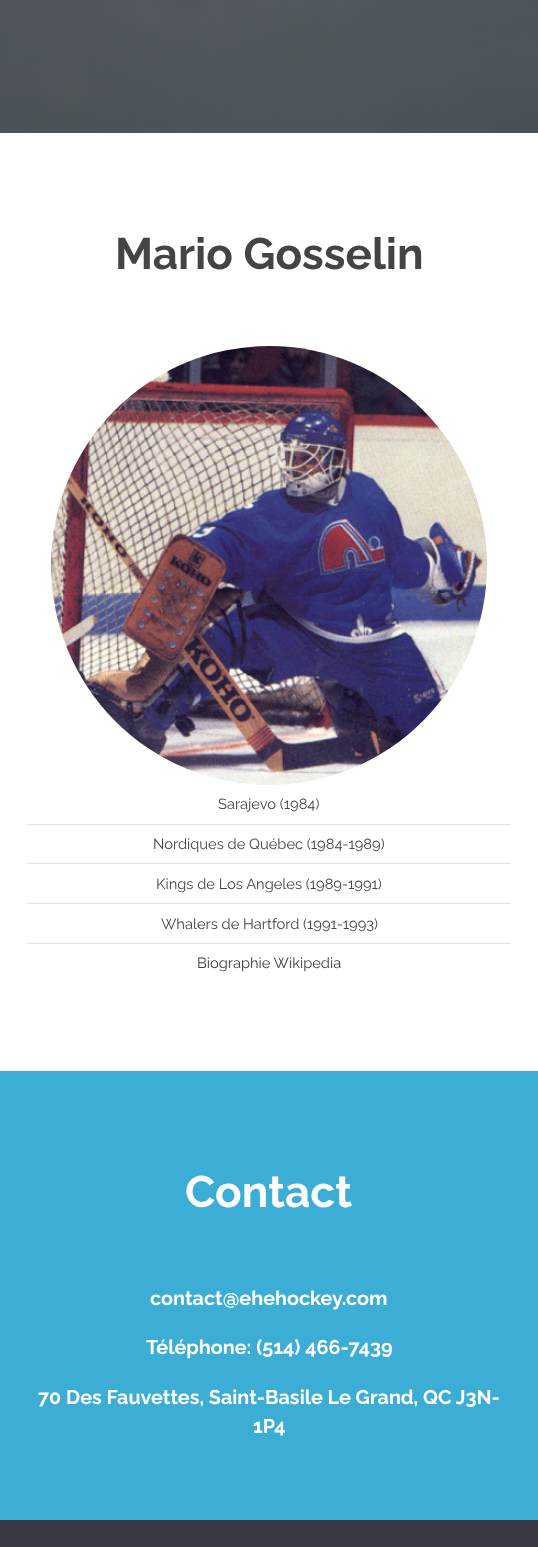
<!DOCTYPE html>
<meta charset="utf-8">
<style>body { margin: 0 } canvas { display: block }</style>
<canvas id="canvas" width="538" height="1547"></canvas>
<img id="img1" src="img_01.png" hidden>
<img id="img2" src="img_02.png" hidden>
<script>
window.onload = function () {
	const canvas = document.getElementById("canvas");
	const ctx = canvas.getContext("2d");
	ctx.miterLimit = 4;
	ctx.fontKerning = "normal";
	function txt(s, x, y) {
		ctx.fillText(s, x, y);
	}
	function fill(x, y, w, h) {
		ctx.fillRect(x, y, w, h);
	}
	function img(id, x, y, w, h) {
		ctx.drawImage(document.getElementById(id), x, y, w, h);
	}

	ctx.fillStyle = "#FFFFFF";
	fill(0, 0, 538, 1547);
	img("img1", 0, 0, 538, 133);
	img("img2", 51, 346, 436, 439);
	ctx.fillStyle = "#E3E3E3";
	fill(27, 824, 484, 1);
	fill(27, 863, 484, 1);
	fill(27, 903, 484, 1);
	fill(27, 943, 484, 1);
	ctx.fillStyle = "#3CADD4";
	fill(0, 1071, 538, 449);
	ctx.fillStyle = "#383B43";
	fill(0, 1520, 538, 27);
	ctx.font = "bold 44px Raleway";
	ctx.fillStyle = "#444444";
	txt("Mario Gosselin", 115, 269);
	ctx.font = "14.7px Raleway";
	txt("Sarajevo (1984)", 218, 809);
	txt("Nordiques de Québec (1984-1989)", 153, 849);
	txt("Kings de Los Angeles (1989-1991)", 156, 889);
	txt("Whalers de Hartford (1991-1993)", 161, 929);
	ctx.fillStyle = "#383B43";
	txt("Biographie Wikipedia", 197, 968);
	ctx.font = "bold 44px Raleway";
	ctx.fillStyle = "#FFFFFF";
	txt("Contact", 185, 1207);
	ctx.font = "bold 19.8px Raleway";
	txt("contact@ehehockey.com", 150, 1305);
	txt("Téléphone: (514) 466-7439", 146, 1354);
	txt("70 Des Fauvettes, Saint-Basile Le Grand, QC J3N-", 38, 1404);
	txt("1P4", 253, 1433);
};
</script>
